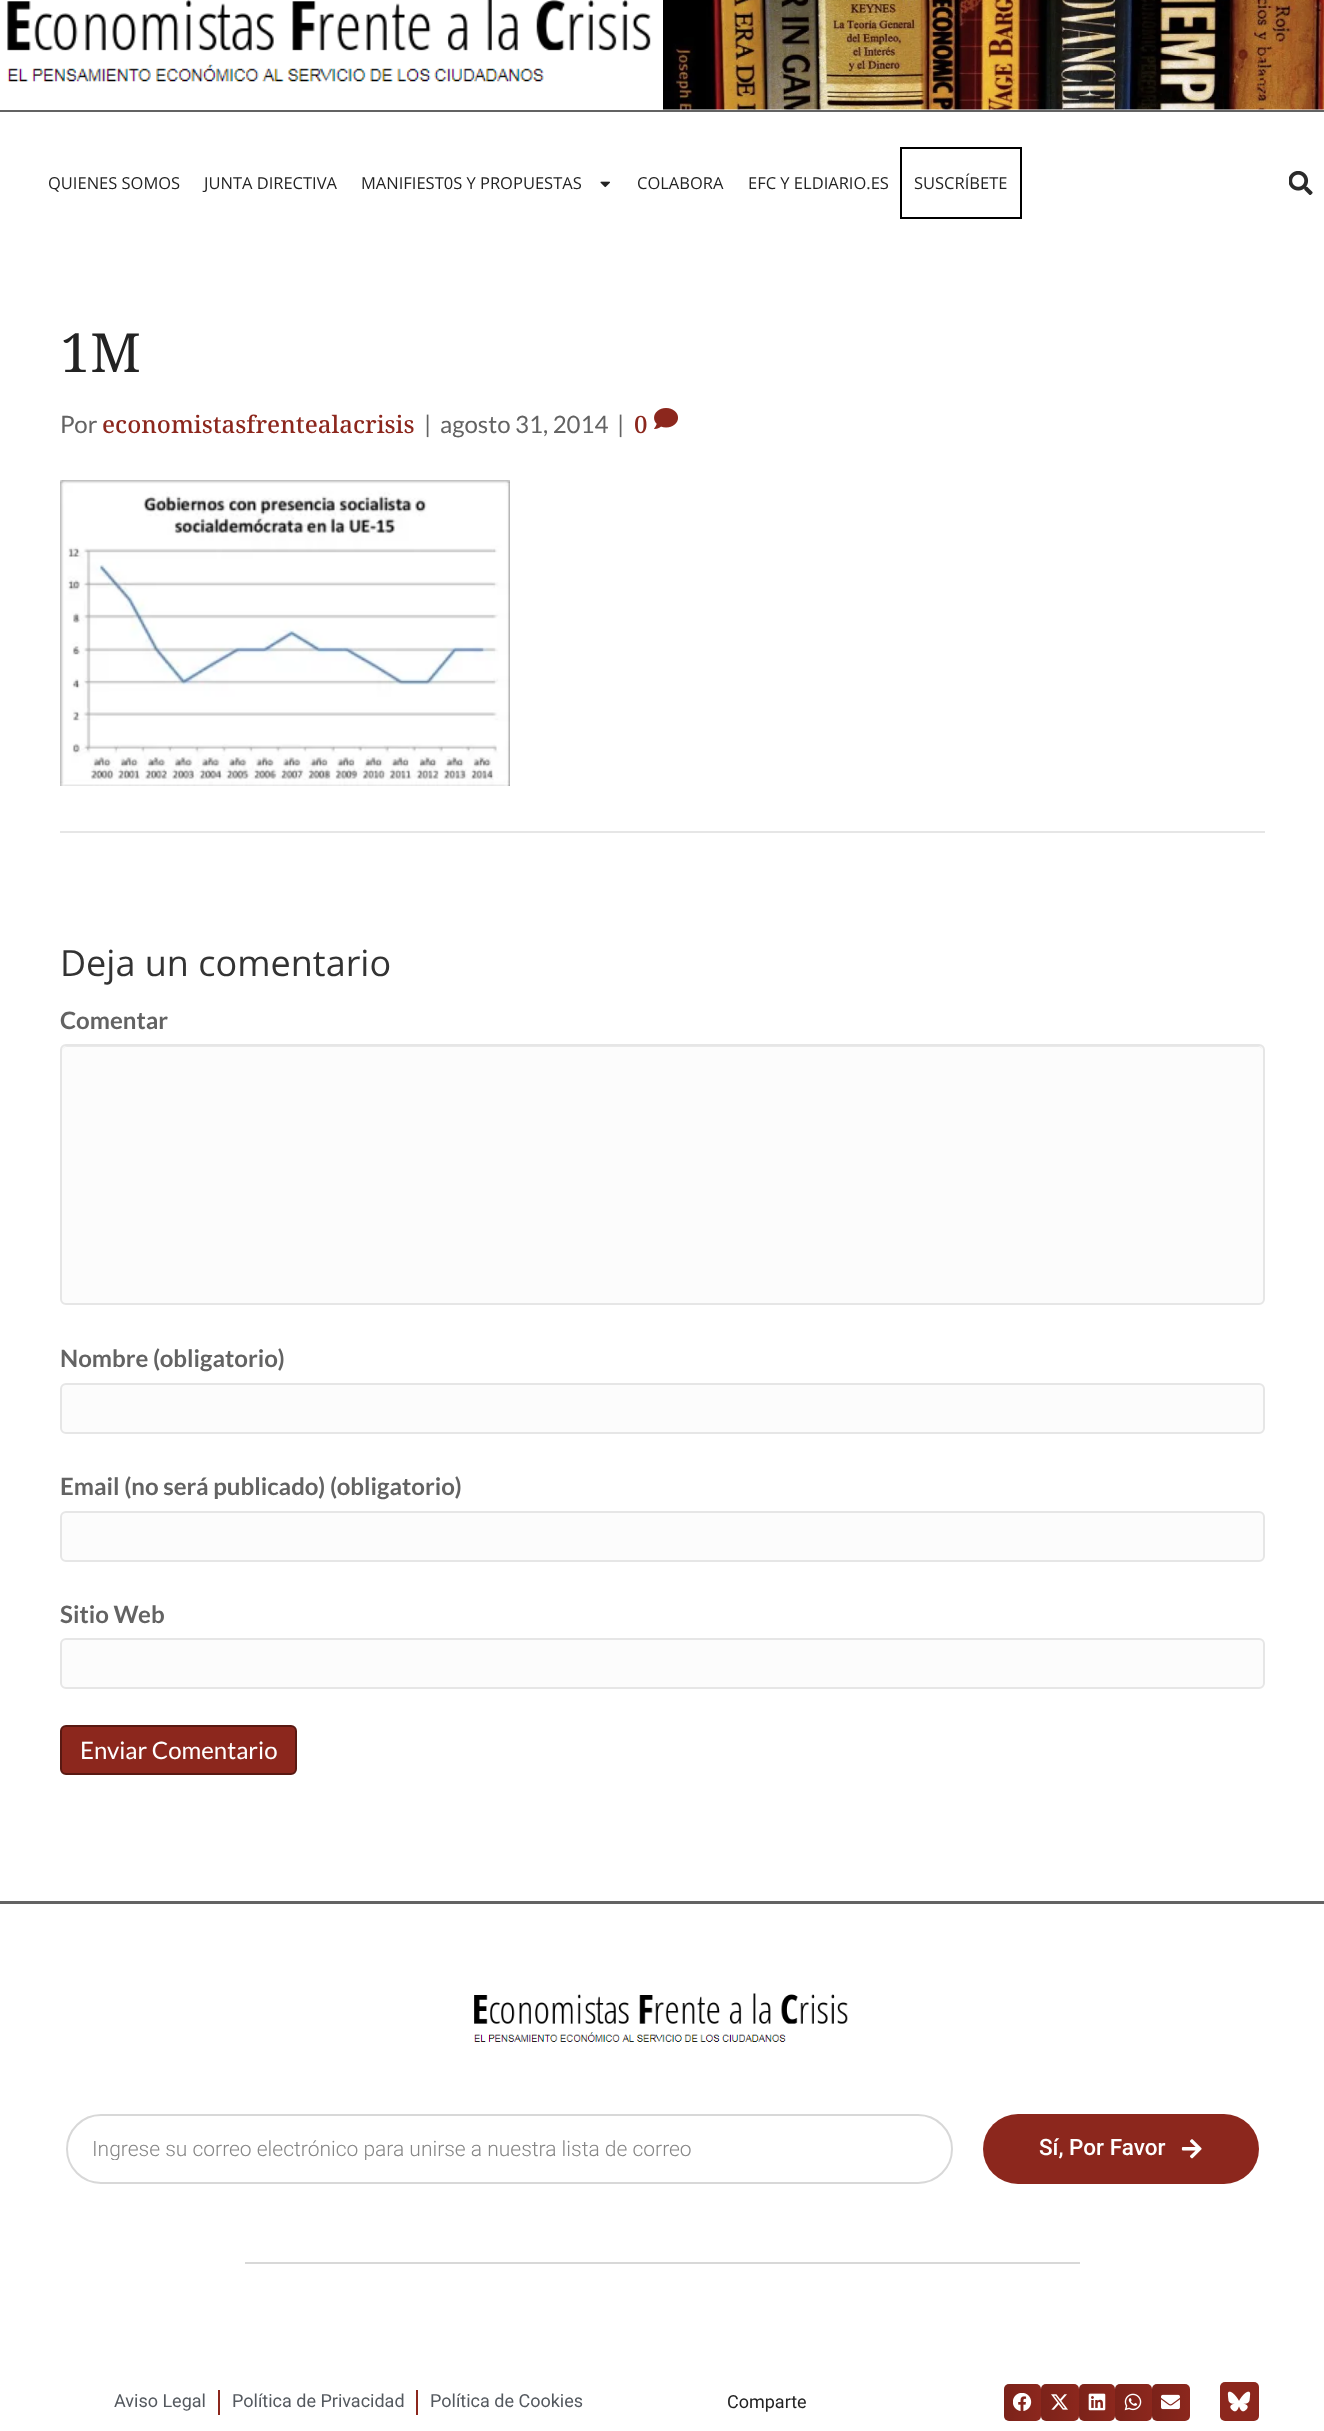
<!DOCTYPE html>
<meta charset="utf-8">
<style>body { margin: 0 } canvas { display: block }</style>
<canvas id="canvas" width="1324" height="2431"></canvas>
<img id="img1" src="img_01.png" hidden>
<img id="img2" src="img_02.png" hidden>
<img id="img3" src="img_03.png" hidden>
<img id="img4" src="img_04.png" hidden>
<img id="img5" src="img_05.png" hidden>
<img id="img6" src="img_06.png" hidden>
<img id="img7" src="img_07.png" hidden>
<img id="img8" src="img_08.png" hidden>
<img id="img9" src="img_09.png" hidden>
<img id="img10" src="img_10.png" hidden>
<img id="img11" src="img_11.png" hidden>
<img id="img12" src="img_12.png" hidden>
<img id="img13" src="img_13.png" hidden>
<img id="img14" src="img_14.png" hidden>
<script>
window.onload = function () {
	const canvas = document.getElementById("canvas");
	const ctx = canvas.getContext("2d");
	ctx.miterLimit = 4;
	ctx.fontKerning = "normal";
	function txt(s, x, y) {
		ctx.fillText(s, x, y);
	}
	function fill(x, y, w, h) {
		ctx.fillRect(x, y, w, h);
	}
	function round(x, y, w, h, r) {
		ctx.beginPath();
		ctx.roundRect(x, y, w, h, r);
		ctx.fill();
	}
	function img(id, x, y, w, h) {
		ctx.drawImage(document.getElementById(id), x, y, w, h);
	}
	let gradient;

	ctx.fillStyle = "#FFFFFF";
	fill(0, 0, 1324, 2431);
	ctx.fillStyle = "#636363";
	fill(0, 110, 1324, 2);
	img("img1", 7, 0, 644, 82);
	img("img2", 663, 0, 661, 110);
	img("img3", 600, 181, 10, 7);
	ctx.strokeStyle = "#000000";
	ctx.lineWidth = 2;
	ctx.strokeRect(901, 148, 120, 70);
	img("img4", 1289, 171, 24, 24);
	img("img5", 654, 408, 24, 21);
	img("img6", 60, 480, 450, 306);
	ctx.fillStyle = "#E6E6E6";
	fill(60, 831, 1205, 2);
	ctx.fillStyle = "#FCFCFC";
	round(60, 1044, 1205, 261, 6);
	ctx.fillStyle = "#E9E9E9";
	ctx.beginPath();
	ctx.moveTo(66, 1047);
	ctx.lineTo(1258, 1047);
	ctx.bezierCurveTo(1261, 1047, 1263, 1049, 1263, 1052);
	ctx.bezierCurveTo(1263, 1049, 1261, 1046, 1258, 1046);
	ctx.lineTo(67, 1046);
	ctx.bezierCurveTo(64, 1046, 62, 1049, 62, 1052);
	ctx.bezierCurveTo(62, 1049, 64, 1047, 66, 1047);
	ctx.closePath();
	ctx.fill();
	ctx.beginPath();
	ctx.roundRect(61, 1045, 1203, 259, 5);
	ctx.strokeStyle = "#E6E6E6";
	ctx.stroke();
	ctx.fillStyle = "#FCFCFC";
	ctx.beginPath();
	ctx.roundRect(61, 1384, 1203, 49, 5);
	ctx.fill();
	ctx.stroke();
	ctx.beginPath();
	ctx.roundRect(61, 1512, 1203, 49, 5);
	ctx.fill();
	ctx.stroke();
	ctx.beginPath();
	ctx.roundRect(61, 1639, 1203, 49, 5);
	ctx.fill();
	ctx.stroke();
	ctx.fillStyle = "#8C271D";
	ctx.beginPath();
	ctx.roundRect(61, 1726, 235, 48, 5);
	ctx.fill();
	ctx.strokeStyle = "#591912";
	ctx.stroke();
	ctx.fillStyle = "#636363";
	fill(0, 1901, 1324, 3);
	img("img7", 474, 1993, 374, 49);
	ctx.beginPath();
	ctx.roundRect(67, 2115, 885, 68, 34);
	ctx.strokeStyle = "#D8D8D8";
	ctx.stroke();
	ctx.fillStyle = "#8C271D";
	round(983, 2114, 276, 70, 35);
	img("img8", 1181, 2139, 21, 20);
	ctx.fillStyle = "#D8D8D8";
	fill(245, 2262, 835, 2);
	ctx.fillStyle = "#8C271D";
	fill(218, 2390, 2, 25);
	fill(416, 2390, 2, 25);
	round(1004, 2384, 37, 37, 5);
	gradient = ctx.createLinearGradient(1004, 2402, 1041, 2402);
	gradient.addColorStop(0, "rgba(0, 0, 0, 0.12)");
	gradient.addColorStop(1, "rgba(0, 0, 0, 0)");
	ctx.fillStyle = gradient;
	round(1004, 2384, 37, 37, 5);
	img("img9", 1013, 2393, 19, 18);
	ctx.fillStyle = "#8C271D";
	round(1041, 2384, 38, 37, 5);
	gradient = ctx.createLinearGradient(1041, 2402, 1079, 2402);
	gradient.addColorStop(0, "rgba(0, 0, 0, 0.12)");
	gradient.addColorStop(1, "rgba(0, 0, 0, 0)");
	ctx.fillStyle = gradient;
	round(1041, 2384, 38, 37, 5);
	img("img10", 1051, 2394, 17, 16);
	ctx.fillStyle = "#8C271D";
	round(1079, 2384, 36, 37, 5);
	gradient = ctx.createLinearGradient(1079, 2402, 1115, 2402);
	gradient.addColorStop(0, "rgba(0, 0, 0, 0.12)");
	gradient.addColorStop(1, "rgba(0, 0, 0, 0)");
	ctx.fillStyle = gradient;
	round(1079, 2384, 36, 37, 5);
	img("img11", 1088, 2393, 18, 18);
	ctx.fillStyle = "#8C271D";
	round(1115, 2384, 37, 37, 5);
	gradient = ctx.createLinearGradient(1115, 2402, 1152, 2402);
	gradient.addColorStop(0, "rgba(0, 0, 0, 0.12)");
	gradient.addColorStop(1, "rgba(0, 0, 0, 0)");
	ctx.fillStyle = gradient;
	round(1115, 2384, 37, 37, 5);
	img("img12", 1124, 2393, 18, 18);
	ctx.fillStyle = "#8C271D";
	round(1152, 2384, 38, 37, 5);
	gradient = ctx.createLinearGradient(1152, 2402, 1190, 2402);
	gradient.addColorStop(0, "rgba(0, 0, 0, 0.12)");
	gradient.addColorStop(1, "rgba(0, 0, 0, 0)");
	ctx.fillStyle = gradient;
	round(1152, 2384, 38, 37, 5);
	img("img13", 1161, 2394, 19, 16);
	ctx.fillStyle = "#8C271D";
	round(1220, 2382, 39, 39, 5);
	img("img14", 1220, 2385, 31, 33);
	ctx.font = "16.5px Open Sans";
	ctx.fillStyle = "#232323";
	txt("QUIENES SOMOS", 48, 189);
	txt("JUNTA DIRECTIVA", 204, 189);
	txt("MANIFIEST0S Y PROPUESTAS", 361, 189);
	txt("COLABORA", 637, 189);
	txt("EFC Y ELDIARIO.ES", 748, 189);
	txt("SUSCRÍBETE", 914, 189);
	ctx.font = "54px Noto Serif";
	txt("1M", 60, 372);
	ctx.font = "24px Lato";
	ctx.fillStyle = "#636363";
	txt("Por", 60, 433);
	ctx.font = "500 24px Noto Serif";
	ctx.fillStyle = "#8C271D";
	txt("economistasfrentealacrisis", 102, 433);
	ctx.font = "24px Lato";
	ctx.fillStyle = "#636363";
	txt("|", 424, 433);
	txt("agosto 31, 2014", 440, 433);
	txt("|", 617, 433);
	ctx.font = "500 24px Noto Serif";
	ctx.fillStyle = "#8C271D";
	txt("0", 634, 433);
	ctx.font = "36px Open Sans";
	ctx.fillStyle = "#333333";
	txt("Deja un comentario", 60, 976);
	ctx.font = "bold 24px Lato";
	ctx.fillStyle = "#636363";
	txt("Comentar", 60, 1029);
	txt("Nombre (obligatorio)", 60, 1367);
	txt("Email (no será publicado) (obligatorio)", 60, 1495);
	txt("Sitio Web", 60, 1623);
	ctx.font = "24px Lato";
	ctx.fillStyle = "#FFFFFF";
	txt("Enviar Comentario", 80, 1759);
	ctx.save();
	ctx.beginPath();
	ctx.rect(92, 2136, 835, 24);
	ctx.clip();
	ctx.font = "300 21px Roboto";
	ctx.fillStyle = "#868686";
	txt("Ingrese su correo electrónico para unirse a nuestra lista de correo", 92, 2156);
	ctx.restore();
	ctx.font = "500 22.5px Roboto";
	txt("Sí, Por Favor", 1039, 2155);
	ctx.font = "18px Roboto";
	ctx.fillStyle = "#54595F";
	txt("Aviso Legal", 114, 2407);
	txt("Política de Privacidad", 232, 2407);
	txt("Política de Cookies", 430, 2407);
	ctx.fillStyle = "#232323";
	txt("Comparte", 727, 2408);
};
</script>
